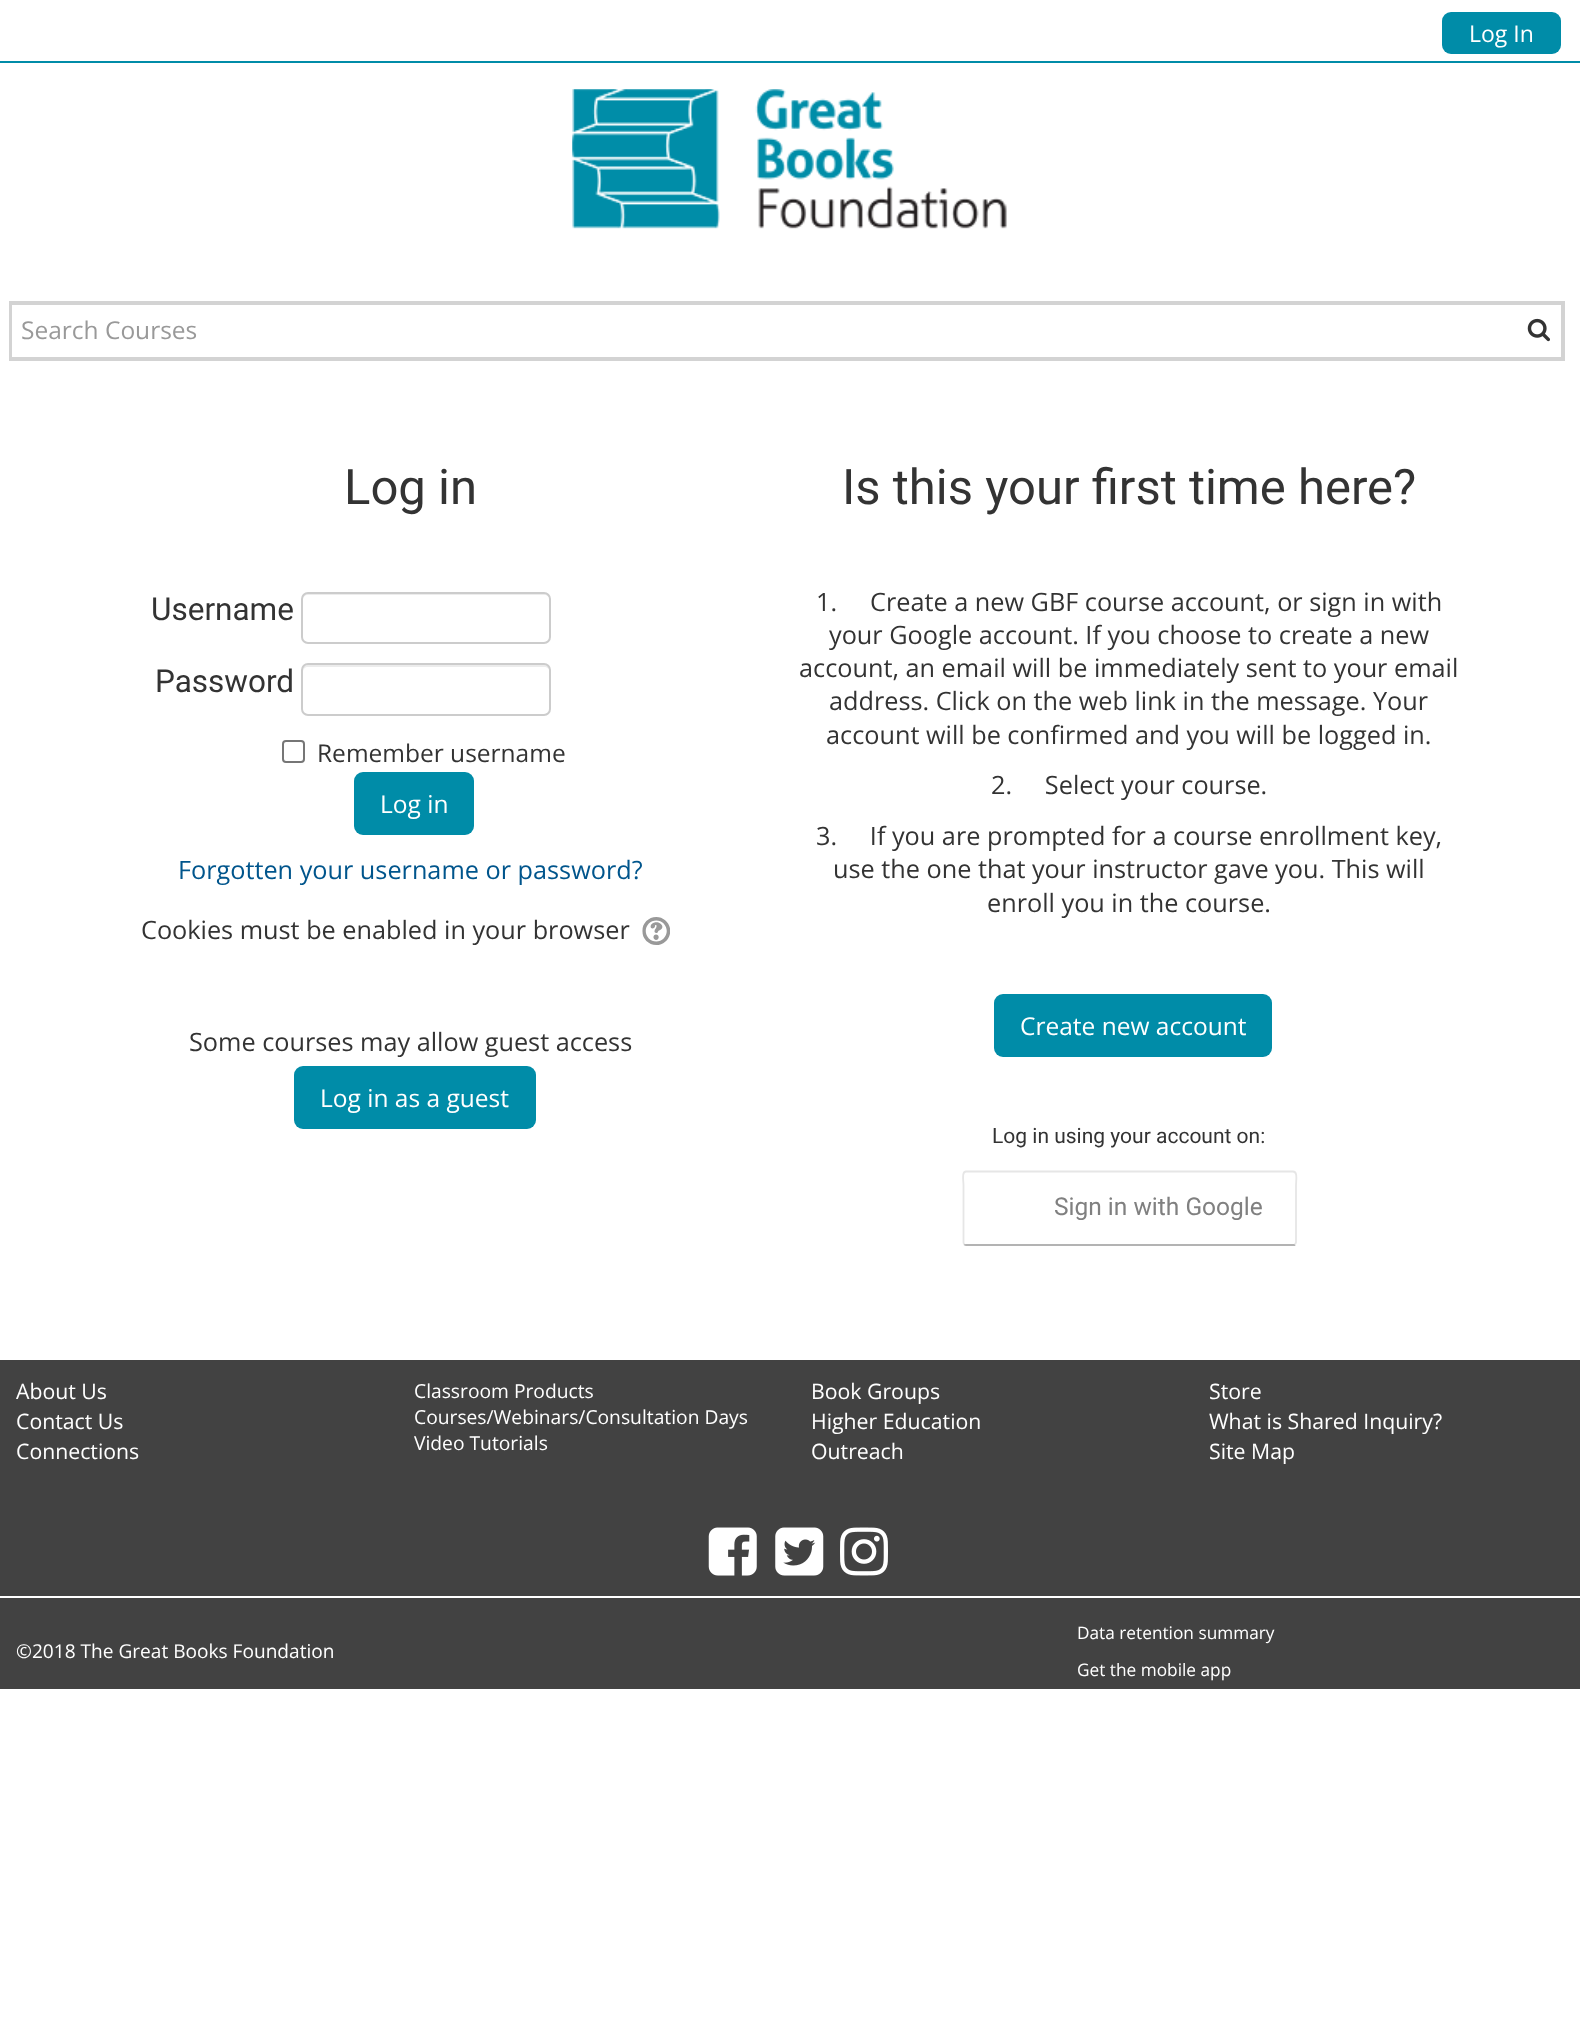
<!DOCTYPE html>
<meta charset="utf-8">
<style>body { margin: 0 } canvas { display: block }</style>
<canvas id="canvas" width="1580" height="2044"></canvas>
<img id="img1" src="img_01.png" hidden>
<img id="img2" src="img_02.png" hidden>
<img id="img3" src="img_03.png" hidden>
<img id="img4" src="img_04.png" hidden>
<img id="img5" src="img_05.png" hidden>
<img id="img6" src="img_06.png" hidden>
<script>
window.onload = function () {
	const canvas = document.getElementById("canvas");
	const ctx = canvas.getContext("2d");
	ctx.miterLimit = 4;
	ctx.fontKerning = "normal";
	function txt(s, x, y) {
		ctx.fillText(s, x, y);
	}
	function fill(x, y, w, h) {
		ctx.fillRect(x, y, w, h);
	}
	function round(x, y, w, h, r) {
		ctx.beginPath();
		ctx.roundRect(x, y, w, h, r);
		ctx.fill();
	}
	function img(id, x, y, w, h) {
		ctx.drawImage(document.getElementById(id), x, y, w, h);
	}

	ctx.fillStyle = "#FFFFFF";
	fill(0, 0, 1580, 2044);
	ctx.fillStyle = "#008CA8";
	fill(0, 61, 1580, 2);
	round(1442, 12, 119, 42, 9);
	img("img1", 572, 89, 435, 140);
	ctx.strokeStyle = "#D3D3D3";
	ctx.lineWidth = 4;
	ctx.strokeRect(11, 303, 1552, 56);
	ctx.fillStyle = "#FFFFFF";
	fill(12, 305, 1, 52);
	img("img2", 1527, 318, 23, 24);
	ctx.fillStyle = "#ECECEC";
	ctx.beginPath();
	ctx.moveTo(308, 595);
	ctx.lineTo(544, 595);
	ctx.bezierCurveTo(547, 595, 550, 597, 550, 600);
	ctx.bezierCurveTo(550, 597, 550, 594, 546, 593);
	ctx.lineTo(307, 593);
	ctx.bezierCurveTo(303, 594, 303, 597, 303, 600);
	ctx.bezierCurveTo(303, 597, 305, 595, 308, 595);
	ctx.closePath();
	ctx.fill();
	ctx.beginPath();
	ctx.roundRect(302, 593, 248, 50, 6);
	ctx.strokeStyle = "#CCCCCC";
	ctx.lineWidth = 2;
	ctx.stroke();
	ctx.beginPath();
	ctx.moveTo(308, 667);
	ctx.lineTo(544, 667);
	ctx.bezierCurveTo(547, 667, 550, 669, 550, 672);
	ctx.bezierCurveTo(550, 669, 550, 666, 546, 665);
	ctx.lineTo(307, 665);
	ctx.bezierCurveTo(303, 666, 303, 669, 303, 672);
	ctx.bezierCurveTo(303, 669, 305, 667, 308, 667);
	ctx.closePath();
	ctx.fill();
	ctx.beginPath();
	ctx.roundRect(302, 664, 248, 51, 6);
	ctx.stroke();
	ctx.beginPath();
	ctx.roundRect(283, 741, 21, 21, 3);
	ctx.strokeStyle = "#767676";
	ctx.stroke();
	ctx.fillStyle = "#008CA8";
	round(354, 772, 120, 63, 9);
	img("img3", 642, 917, 28, 28);
	round(294, 1066, 242, 63, 9);
	round(994, 994, 278, 63, 9);
	ctx.beginPath();
	ctx.moveTo(1295, 1244.5);
	ctx.lineTo(1294.5, 1245);
	ctx.lineTo(1020.5, 1245);
	ctx.lineTo(966, 1245);
	ctx.lineTo(964, 1244.5);
	ctx.strokeStyle = "#B3B3B3";
	ctx.lineWidth = 1.8;
	ctx.stroke();
	ctx.beginPath();
	ctx.moveTo(964, 1244.5);
	ctx.lineTo(963.5, 1242.5);
	ctx.lineTo(963.5, 1185.5);
	ctx.bezierCurveTo(963.5, 1180.5, 961.5, 1171.5, 966, 1171.5);
	ctx.lineTo(1293, 1171.5);
	ctx.bezierCurveTo(1298, 1171.5, 1296, 1180.5, 1296, 1185.5);
	ctx.lineTo(1296, 1242.5);
	ctx.lineTo(1295, 1244.5);
	ctx.strokeStyle = "#E6E6E6";
	ctx.stroke();
	ctx.fillStyle = "#424242";
	fill(0, 1360, 1580, 329);
	img("img4", 708, 1527, 49, 49);
	img("img5", 775, 1527, 49, 49);
	img("img6", 840, 1527, 48, 49);
	ctx.fillStyle = "#FFFFFF";
	fill(0, 1596, 1580, 2);
	ctx.font = "23px Open Sans";
	txt("Log In", 1469, 42);
	ctx.font = "24.5px Open Sans";
	ctx.fillStyle = "#999999";
	txt("Search Courses", 21, 339);
	ctx.font = "49px Roboto";
	ctx.fillStyle = "#333333";
	txt("Log in", 344, 504);
	ctx.font = "31.5px Roboto";
	txt("Username", 151, 620);
	txt("Password", 155, 692);
	ctx.font = "24.5px Open Sans";
	txt("Remember username", 317, 762);
	ctx.fillStyle = "#FFFFFF";
	txt("Log in", 380, 813);
	ctx.font = "25.25px Open Sans";
	ctx.fillStyle = "#00558C";
	txt("Forgotten your username or password?", 178, 879);
	ctx.fillStyle = "#333333";
	txt("Cookies must be enabled in your browser", 141, 939);
	txt("Some courses may allow guest access", 189, 1051);
	ctx.font = "24.5px Open Sans";
	ctx.fillStyle = "#FFFFFF";
	txt("Log in as a guest", 320, 1107);
	ctx.font = "49px Roboto";
	ctx.fillStyle = "#333333";
	txt("Is this your first time here?", 842, 504);
	ctx.font = "25.25px Open Sans";
	txt("1.", 816, 611);
	txt("Create a new GBF course account, or sign in with", 870, 611);
	txt("your Google account. If you choose to create a new", 829, 644);
	txt("account, an email will be immediately sent to your email", 799, 677);
	txt("address. Click on the web link in the message. Your", 829, 710);
	txt("account will be confirmed and you will be logged in.", 826, 744);
	txt("2.     Select your course.", 991, 794);
	txt("3.     If you are prompted for a course enrollment key,", 816, 845);
	txt("use the one that your instructor gave you. This will", 833, 878);
	txt("enroll you in the course.", 987, 912);
	ctx.font = "24.5px Open Sans";
	ctx.fillStyle = "#FFFFFF";
	txt("Create new account", 1020, 1035);
	ctx.font = "21px Roboto";
	ctx.fillStyle = "#333333";
	txt("Log in using your account on:", 992, 1143);
	ctx.font = "24.5px Roboto";
	ctx.fillStyle = "#808080";
	txt("Sign in with Google", 1054, 1215);
	ctx.font = "21.25px Open Sans";
	ctx.fillStyle = "#FFFFFF";
	txt("About Us", 16, 1399);
	txt("Contact Us", 16, 1429);
	txt("Connections", 16, 1459);
	ctx.font = "19.25px Open Sans";
	txt("Classroom Products", 414, 1398);
	txt("Courses/Webinars/Consultation Days", 414, 1424);
	txt("Video Tutorials", 414, 1450);
	ctx.font = "21.25px Open Sans";
	txt("Book Groups", 811, 1399);
	txt("Higher Education", 811, 1429);
	txt("Outreach", 811, 1459);
	txt("Store", 1209, 1399);
	txt("What is Shared Inquiry?", 1209, 1429);
	txt("Site Map", 1209, 1459);
	ctx.font = "19.1px Open Sans";
	txt("©2018 The Great Books Foundation", 16, 1658);
	ctx.font = "17.25px Open Sans";
	txt("Data retention summary", 1077, 1639);
	txt("Get the mobile app", 1077, 1676);
};
</script>
